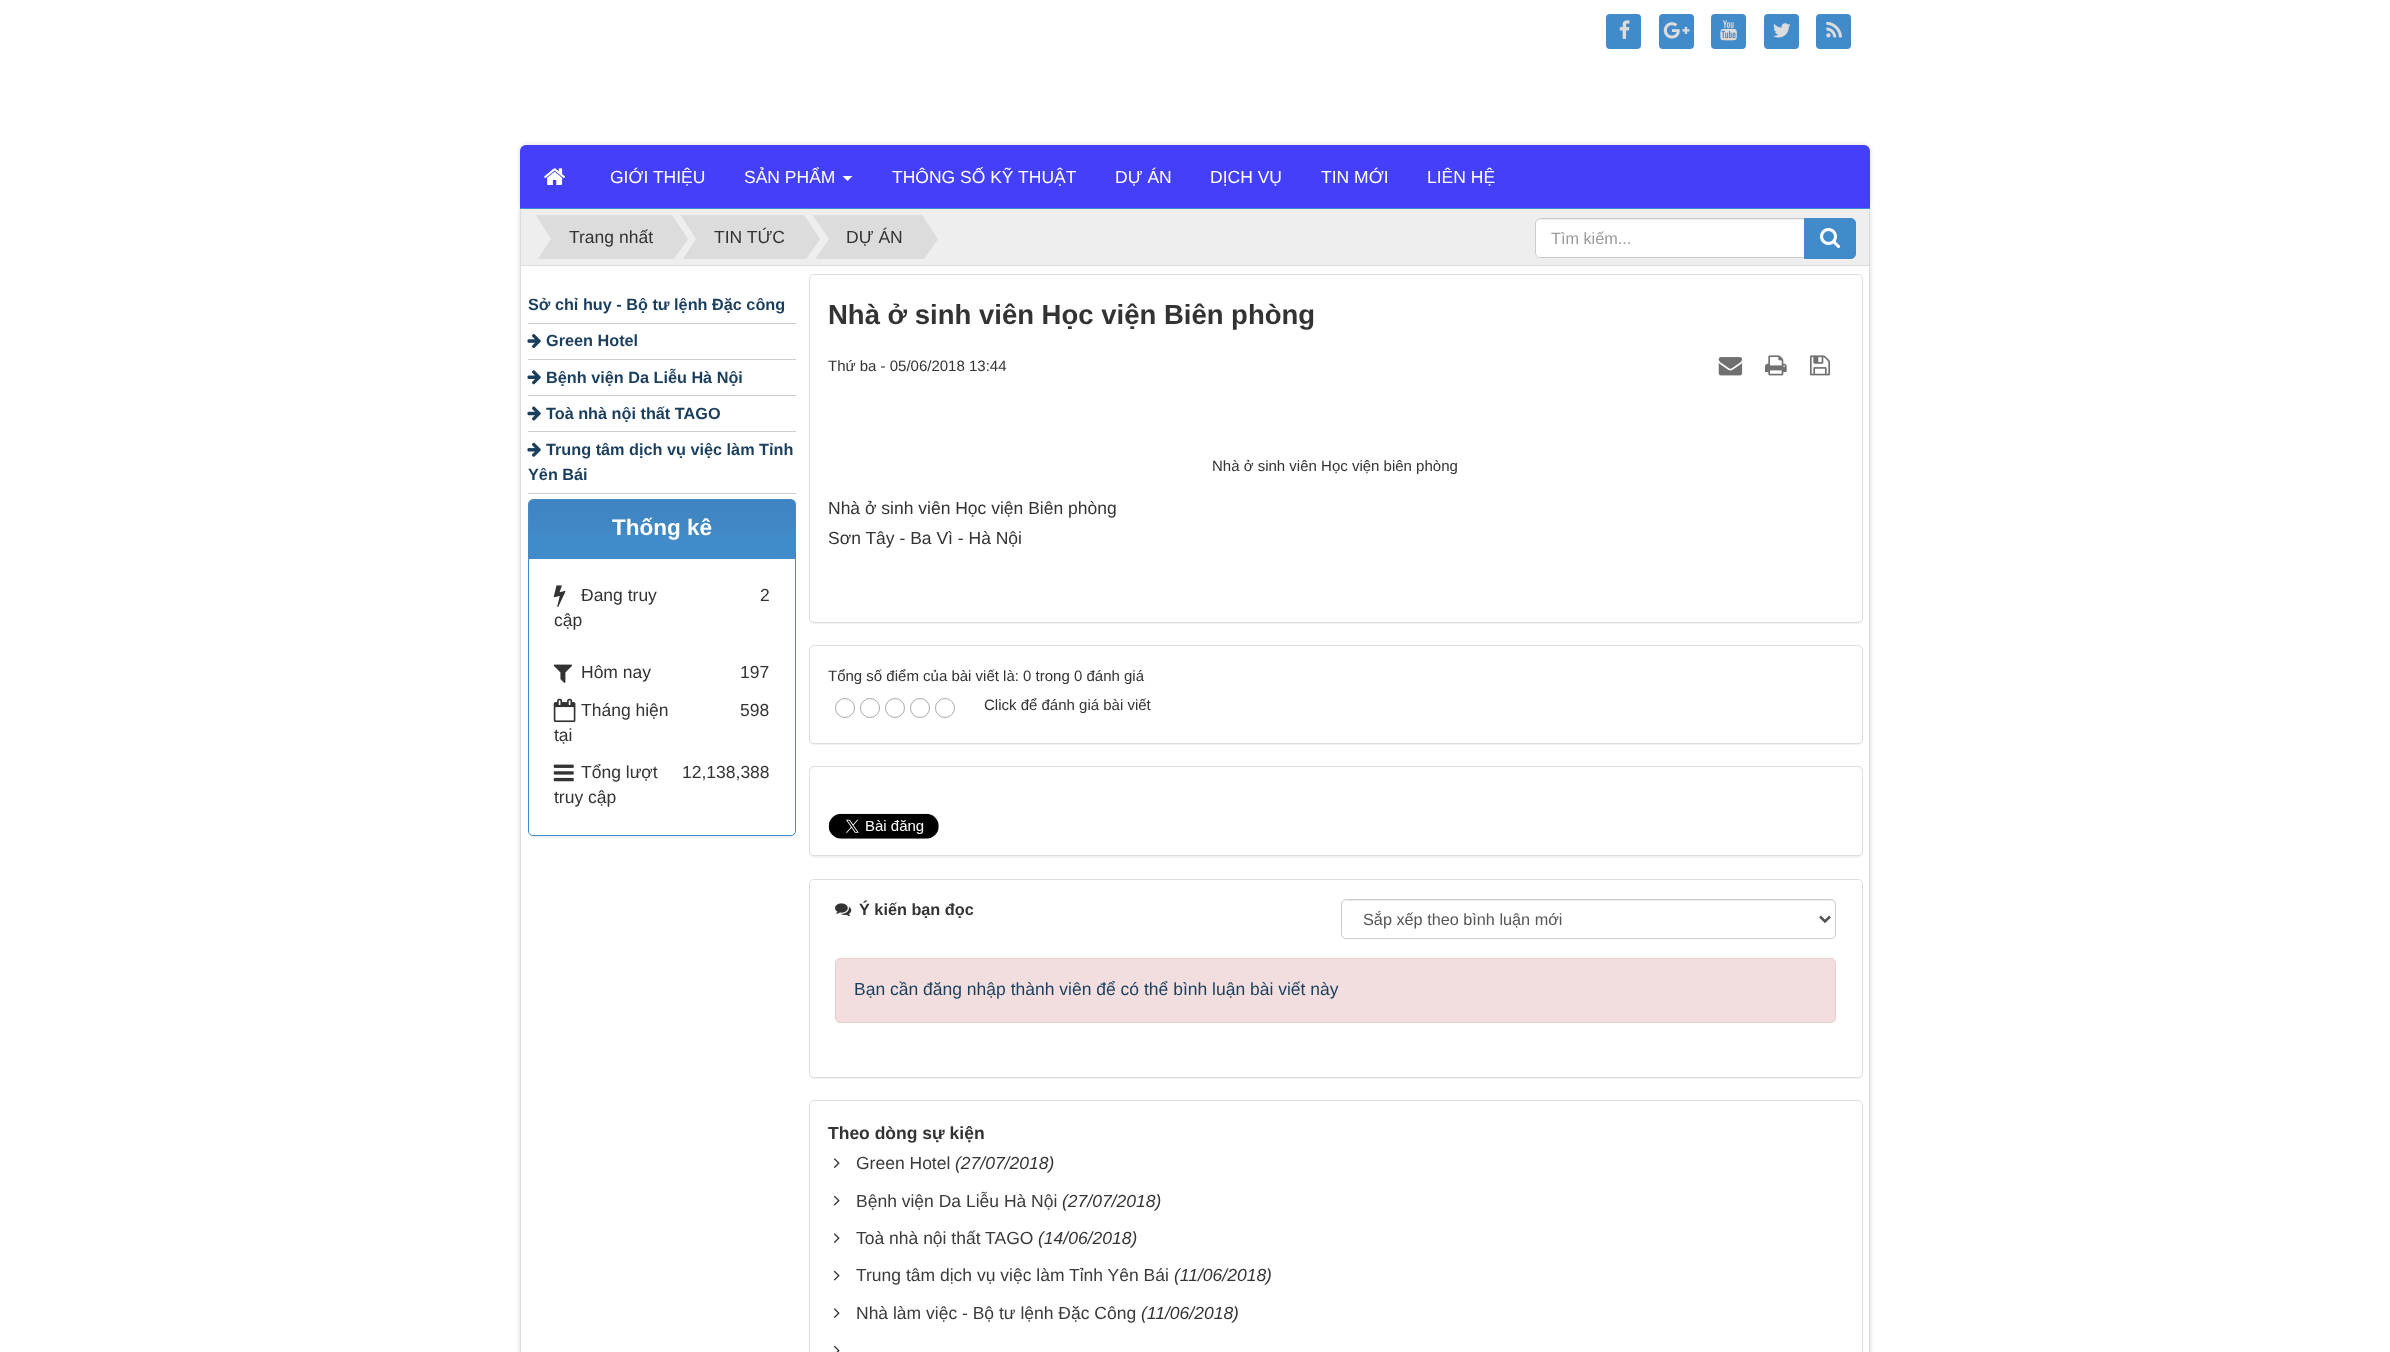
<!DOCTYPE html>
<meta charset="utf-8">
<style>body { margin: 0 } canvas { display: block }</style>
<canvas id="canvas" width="2390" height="1352"></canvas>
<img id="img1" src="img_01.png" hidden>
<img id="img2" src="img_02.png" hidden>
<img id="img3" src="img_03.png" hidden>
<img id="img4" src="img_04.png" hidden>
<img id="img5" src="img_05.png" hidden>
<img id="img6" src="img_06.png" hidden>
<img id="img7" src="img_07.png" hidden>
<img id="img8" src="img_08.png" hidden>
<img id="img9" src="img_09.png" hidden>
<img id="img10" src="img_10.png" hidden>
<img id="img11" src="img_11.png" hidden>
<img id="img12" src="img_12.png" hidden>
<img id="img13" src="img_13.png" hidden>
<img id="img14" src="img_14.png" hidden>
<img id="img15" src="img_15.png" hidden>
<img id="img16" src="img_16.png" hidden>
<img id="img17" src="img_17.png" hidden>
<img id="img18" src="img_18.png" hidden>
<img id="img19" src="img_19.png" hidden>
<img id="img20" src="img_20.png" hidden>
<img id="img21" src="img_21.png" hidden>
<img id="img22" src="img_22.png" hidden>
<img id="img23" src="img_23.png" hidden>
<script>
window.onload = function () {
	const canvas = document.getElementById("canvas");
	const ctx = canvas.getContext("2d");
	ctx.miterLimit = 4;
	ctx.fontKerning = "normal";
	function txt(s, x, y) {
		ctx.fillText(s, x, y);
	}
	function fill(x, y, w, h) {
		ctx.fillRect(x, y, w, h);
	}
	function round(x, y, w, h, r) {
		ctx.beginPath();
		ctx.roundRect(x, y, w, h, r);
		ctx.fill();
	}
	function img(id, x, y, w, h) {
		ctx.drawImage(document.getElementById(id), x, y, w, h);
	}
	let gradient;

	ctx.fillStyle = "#FFFFFF";
	fill(0, 0, 2390, 1352);
	ctx.fillStyle = "#428BCA";
	round(1606, 14, 35, 35, 4);
	img("img1", 1619, 20, 11, 19);
	round(1659, 14, 35, 35, 4);
	img("img2", 1663, 22, 27, 17);
	round(1711, 14, 35, 35, 4);
	img("img3", 1720, 20, 17, 21);
	round(1764, 14, 35, 35, 4);
	img("img4", 1773, 23, 18, 15);
	round(1816, 14, 35, 35, 4);
	img("img5", 1826, 21, 16, 17);
	ctx.fillStyle = "rgba(0, 0, 0, 0.15)";
	ctx.filter = "blur(2.5px)";
	ctx.beginPath();
	ctx.roundRect(520, 145, 1350, 64, 6);
	ctx.fill();
	ctx.filter = "none";
	ctx.filter = "blur(2.5px)";
	ctx.beginPath();
	ctx.rect(520, 209, 1350, 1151);
	ctx.fill();
	ctx.filter = "none";
	ctx.fillStyle = "#4440FA";
	ctx.beginPath();
	ctx.roundRect(520, 145, 1350, 63, [6, 6, 0, 0]);
	ctx.fill();
	ctx.fillStyle = "#428BCA";
	fill(520, 208, 1350, 1);
	img("img6", 544, 168, 21, 17);
	ctx.fillStyle = "#FFFFFF";
	ctx.beginPath();
	ctx.moveTo(842.5, 176);
	ctx.lineTo(852.5, 176);
	ctx.lineTo(847.5, 181);
	ctx.closePath();
	ctx.fill();
	fill(521, 266, 1348, 1086);
	ctx.fillStyle = "#DCDCDC";
	fill(1869, 209, 1, 1143);
	fill(520, 209, 1, 1143);
	fill(521, 265, 1348, 1);
	ctx.fillStyle = "#EEEEEE";
	fill(521, 209, 1348, 56);
	ctx.fillStyle = "#DCDCDC";
	fill(551, 215, 119, 44);
	ctx.save();
	ctx.beginPath();
	ctx.rect(534, 215, 989, 44);
	ctx.clip();
	ctx.beginPath();
	ctx.moveTo(534, 212.5);
	ctx.lineTo(551, 212.5);
	ctx.lineTo(551, 239);
	ctx.closePath();
	ctx.moveTo(551, 265);
	ctx.lineTo(534, 265);
	ctx.lineTo(551, 239);
	ctx.closePath();
	ctx.fill();
	ctx.beginPath();
	ctx.moveTo(670, 265);
	ctx.lineTo(670, 212);
	ctx.lineTo(688, 239);
	ctx.closePath();
	ctx.fill();
	ctx.restore();
	fill(696, 215, 106, 44);
	ctx.save();
	ctx.beginPath();
	ctx.rect(534, 215, 989, 44);
	ctx.clip();
	ctx.beginPath();
	ctx.moveTo(679, 212.5);
	ctx.lineTo(696, 212.5);
	ctx.lineTo(696, 239);
	ctx.closePath();
	ctx.moveTo(696, 265);
	ctx.lineTo(679, 265);
	ctx.lineTo(696, 239);
	ctx.closePath();
	ctx.fill();
	ctx.beginPath();
	ctx.moveTo(802, 265);
	ctx.lineTo(802, 212);
	ctx.lineTo(820, 239);
	ctx.closePath();
	ctx.fill();
	ctx.restore();
	fill(829, 215, 91, 44);
	ctx.save();
	ctx.beginPath();
	ctx.rect(534, 215, 989, 44);
	ctx.clip();
	ctx.beginPath();
	ctx.moveTo(811, 212.5);
	ctx.lineTo(829, 212.5);
	ctx.lineTo(829, 239);
	ctx.closePath();
	ctx.moveTo(829, 265);
	ctx.lineTo(811, 265);
	ctx.lineTo(829, 239);
	ctx.closePath();
	ctx.fill();
	ctx.beginPath();
	ctx.moveTo(920, 265);
	ctx.lineTo(920, 212);
	ctx.lineTo(938, 239);
	ctx.closePath();
	ctx.fill();
	ctx.restore();
	ctx.fillStyle = "#FFFFFF";
	ctx.beginPath();
	ctx.roundRect(1535, 218, 270, 40, [5, 0, 0, 5]);
	ctx.fill();
	ctx.fillStyle = "#ECECEC";
	ctx.beginPath();
	ctx.moveTo(1540, 220);
	ctx.lineTo(1804, 220);
	ctx.lineTo(1804, 219);
	ctx.lineTo(1540, 219);
	ctx.bezierCurveTo(1537, 219, 1536, 221, 1536, 224);
	ctx.bezierCurveTo(1536, 222, 1538, 220, 1540, 220);
	ctx.closePath();
	ctx.fill();
	ctx.beginPath();
	ctx.roundRect(1535.5, 218.5, 269, 39, [4.5, 0, 0, 4.5]);
	ctx.strokeStyle = "#CCCCCC";
	ctx.stroke();
	ctx.fillStyle = "#428BCA";
	ctx.beginPath();
	ctx.roundRect(1804.5, 218.5, 51, 40, [0, 4.5, 4.5, 0]);
	ctx.fill();
	ctx.strokeStyle = "#428BCA";
	ctx.stroke();
	img("img7", 1820, 228, 21, 21);
	ctx.fillStyle = "#CCCCCC";
	fill(528, 323, 268, 1);
	fill(528, 359, 268, 1);
	img("img8", 527, 334, 14, 15);
	fill(528, 395, 268, 1);
	img("img9", 527, 370, 14, 15);
	fill(528, 431, 268, 1);
	img("img10", 527, 406, 14, 15);
	fill(528, 493, 268, 1);
	img("img11", 527, 442, 14, 15);
	ctx.save();
	ctx.beginPath();
	ctx.moveTo(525, 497);
	ctx.lineTo(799, 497);
	ctx.lineTo(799, 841);
	ctx.lineTo(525, 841);
	ctx.closePath();
	ctx.moveTo(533, 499);
	ctx.lineTo(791, 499);
	ctx.bezierCurveTo(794, 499, 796, 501, 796, 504);
	ctx.lineTo(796, 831);
	ctx.bezierCurveTo(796, 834, 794, 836, 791, 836);
	ctx.lineTo(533, 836);
	ctx.bezierCurveTo(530, 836, 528, 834, 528, 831);
	ctx.lineTo(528, 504);
	ctx.bezierCurveTo(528, 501, 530, 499, 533, 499);
	ctx.closePath();
	ctx.clip("evenodd");
	ctx.fillStyle = "rgba(0, 0, 0, 0.05)";
	ctx.filter = "blur(0.5px)";
	ctx.beginPath();
	ctx.roundRect(528, 500, 268, 338, 5);
	ctx.fill();
	ctx.filter = "none";
	ctx.restore();
	ctx.beginPath();
	ctx.roundRect(528.5, 499.5, 267, 336, 4.5);
	ctx.stroke();
	ctx.fillStyle = "#428BCA";
	ctx.beginPath();
	ctx.roundRect(529, 500, 266, 59, [4, 4, 0, 0]);
	ctx.fill();
	gradient = ctx.createLinearGradient(662, 500, 662, 558);
	gradient.addColorStop(0, "rgba(0, 0, 0, 0.05)");
	gradient.addColorStop(1, "rgba(0, 0, 0, 0)");
	ctx.fillStyle = gradient;
	fill(529, 500, 266, 33);
	img("img12", 553, 585, 13, 23);
	img("img13", 553, 664, 20, 19);
	img("img14", 553, 698, 23, 25);
	img("img15", 553, 764, 21, 18);
	ctx.fillStyle = "rgba(0, 0, 0, 0.05)";
	ctx.filter = "blur(0.5px)";
	ctx.beginPath();
	ctx.roundRect(809, 275, 1054, 349, 5);
	ctx.fill();
	ctx.filter = "none";
	ctx.fillStyle = "#FFFFFF";
	ctx.beginPath();
	ctx.roundRect(809.5, 274.5, 1053, 348, 4.5);
	ctx.fill();
	ctx.strokeStyle = "#DDDDDD";
	ctx.stroke();
	img("img16", 1718, 357, 25, 19);
	img("img17", 1765, 355, 22, 21);
	img("img18", 1810, 355, 20, 21);
	ctx.fillStyle = "rgba(0, 0, 0, 0.05)";
	ctx.filter = "blur(0.5px)";
	ctx.beginPath();
	ctx.roundRect(809, 646, 1054, 99, 5);
	ctx.fill();
	ctx.filter = "none";
	ctx.fillStyle = "#FFFFFF";
	ctx.beginPath();
	ctx.roundRect(809.5, 645.5, 1053, 98, 4.5);
	ctx.fill();
	ctx.stroke();
	ctx.beginPath();
	ctx.arc(845, 708, 9.5, 0, Math.PI * 2);
	ctx.strokeStyle = "#AAAAAA";
	ctx.stroke();
	ctx.beginPath();
	ctx.arc(870, 708, 9.5, 0, Math.PI * 2);
	ctx.stroke();
	ctx.beginPath();
	ctx.arc(895, 708, 9.5, 0, Math.PI * 2);
	ctx.stroke();
	ctx.beginPath();
	ctx.arc(920, 708, 9.5, 0, Math.PI * 2);
	ctx.stroke();
	ctx.beginPath();
	ctx.arc(945, 708, 9.5, 0, Math.PI * 2);
	ctx.stroke();
	ctx.fillStyle = "rgba(0, 0, 0, 0.05)";
	ctx.filter = "blur(0.5px)";
	ctx.beginPath();
	ctx.roundRect(809, 768, 1054, 90, 5);
	ctx.fill();
	ctx.filter = "none";
	ctx.fillStyle = "#FFFFFF";
	ctx.beginPath();
	ctx.roundRect(809.5, 766.5, 1053, 89, 4.5);
	ctx.fill();
	ctx.strokeStyle = "#DDDDDD";
	ctx.stroke();
	img("img19", 828, 813, 111, 26);
	ctx.fillStyle = "rgba(0, 0, 0, 0.05)";
	ctx.filter = "blur(0.5px)";
	ctx.beginPath();
	ctx.roundRect(809, 880, 1054, 199, 5);
	ctx.fill();
	ctx.filter = "none";
	ctx.fillStyle = "#FFFFFF";
	ctx.beginPath();
	ctx.roundRect(809.5, 879.5, 1053, 198, 4.5);
	ctx.fill();
	ctx.stroke();
	img("img20", 835, 903, 17, 14);
	ctx.fillStyle = "#ECECEC";
	ctx.beginPath();
	ctx.moveTo(1346, 901);
	ctx.lineTo(1831, 901);
	ctx.bezierCurveTo(1833, 901, 1835, 903, 1835, 905);
	ctx.lineTo(1835, 904);
	ctx.bezierCurveTo(1835, 902, 1833, 900, 1831, 900);
	ctx.lineTo(1347, 900);
	ctx.bezierCurveTo(1346, 900, 1344, 901, 1344, 902);
	ctx.closePath();
	ctx.fill();
	ctx.beginPath();
	ctx.roundRect(1341.5, 899.5, 494, 39, 4.5);
	ctx.strokeStyle = "#CCCCCC";
	ctx.stroke();
	ctx.beginPath();
	ctx.moveTo(1820, 916.5);
	ctx.lineTo(1825, 921.5);
	ctx.lineTo(1830, 916.5);
	ctx.strokeStyle = "#555555";
	ctx.lineWidth = 2.5;
	ctx.stroke();
	ctx.fillStyle = "#F2DEDE";
	ctx.beginPath();
	ctx.roundRect(835.5, 958.5, 1000, 64, 4.5);
	ctx.fill();
	ctx.strokeStyle = "#EBCCD1";
	ctx.lineWidth = 1;
	ctx.stroke();
	ctx.beginPath();
	ctx.roundRect(809.5, 1100.5, 1053, 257, 4.5);
	ctx.strokeStyle = "#DDDDDD";
	ctx.stroke();
	img("img21", 833, 1158, 7, 10);
	img("img22", 833, 1195, 7, 11);
	img("img21", 833, 1233, 7, 10);
	img("img22", 833, 1270, 7, 11);
	img("img21", 833, 1308, 7, 10);
	img("img23", 833, 1345, 7, 7);
	ctx.font = "17.5px Liberation Sans";
	ctx.fillStyle = "#FFFFFF";
	txt("GIỚI THIỆU", 610, 183);
	txt("SẢN PHẨM", 744, 183);
	txt("THÔNG SỐ KỸ THUẬT", 892, 183);
	txt("DỰ ÁN", 1115, 183);
	txt("DỊCH VỤ", 1210, 183);
	txt("TIN MỚI", 1321, 183);
	txt("LIÊN HỆ", 1427, 183);
	ctx.fillStyle = "#333333";
	txt("Trang nhất", 569, 243);
	txt("TIN TỨC", 714, 243);
	txt("DỰ ÁN", 846, 243);
	ctx.font = "16.25px Liberation Sans";
	ctx.fillStyle = "#999999";
	txt("Tìm kiếm...", 1551, 244);
	ctx.font = "bold 16.25px Liberation Sans";
	ctx.fillStyle = "#1A3F5E";
	txt("Sở chỉ huy - Bộ tư lệnh Đặc công", 528, 310);
	txt("Green Hotel", 546, 346);
	txt("Bệnh viện Da Liễu Hà Nội", 546, 383);
	txt("Toà nhà nội thất TAGO", 546, 419);
	txt("Trung tâm dịch vụ việc làm Tỉnh", 546, 455);
	txt("Yên Bái", 528, 480);
	ctx.font = "bold 22.5px Liberation Sans";
	ctx.fillStyle = "#FFFFFF";
	txt("Thống kê", 612, 535);
	ctx.font = "17.5px Liberation Sans";
	ctx.fillStyle = "#333333";
	txt("Đang truy", 581, 601);
	txt("cập", 554, 626);
	txt("2", 760, 601);
	txt("Hôm nay", 581, 678);
	txt("197", 740, 678);
	txt("Tháng hiện", 581, 716);
	txt("tại", 554, 741);
	txt("598", 740, 716);
	txt("Tổng lượt", 581, 778);
	txt("truy cập", 554, 803);
	txt("12,138,388", 682, 778);
	ctx.font = "bold 27.5px Liberation Sans";
	txt("Nhà ở sinh viên Học viện Biên phòng", 828, 324);
	ctx.font = "15px Liberation Sans";
	txt("Thứ ba - 05/06/2018 13:44", 828, 371);
	txt("Nhà ở sinh viên Học viện biên phòng", 1212, 471);
	ctx.font = "17.5px Liberation Sans";
	txt("Nhà ở sinh viên Học viện Biên phòng", 828, 514);
	txt("Sơn Tây - Ba Vì - Hà Nội", 828, 544);
	ctx.font = "15px Liberation Sans";
	txt("Tổng số điểm của bài viết là: 0 trong 0 đánh giá", 828, 681);
	txt("Click để đánh giá bài viết", 984, 710);
	ctx.font = "bold 16.25px Liberation Sans";
	txt("Ý kiến bạn đọc", 859, 915);
	ctx.font = "16.25px Liberation Sans";
	ctx.fillStyle = "#555555";
	txt("Sắp xếp theo bình luận mới", 1363, 925);
	ctx.font = "17.5px Liberation Sans";
	ctx.fillStyle = "#1A3F5E";
	txt("Bạn cần đăng nhập thành viên để có thể bình luận bài viết này", 854, 995);
	ctx.font = "bold 17.5px Liberation Sans";
	ctx.fillStyle = "#333333";
	txt("Theo dòng sự kiện", 828, 1139);
	ctx.font = "17.5px Liberation Sans";
	ctx.fillStyle = "#3B3B3B";
	txt("Green Hotel", 856, 1169);
	ctx.font = "italic 17.5px Liberation Sans";
	ctx.fillStyle = "#333333";
	txt("(27/07/2018)", 955, 1169);
	ctx.font = "17.5px Liberation Sans";
	ctx.fillStyle = "#3B3B3B";
	txt("Bệnh viện Da Liễu Hà Nội", 856, 1207);
	ctx.font = "italic 17.5px Liberation Sans";
	ctx.fillStyle = "#333333";
	txt("(27/07/2018)", 1062, 1207);
	ctx.font = "17.5px Liberation Sans";
	ctx.fillStyle = "#3B3B3B";
	txt("Toà nhà nội thất TAGO", 856, 1244);
	ctx.font = "italic 17.5px Liberation Sans";
	ctx.fillStyle = "#333333";
	txt("(14/06/2018)", 1038, 1244);
	ctx.font = "17.5px Liberation Sans";
	ctx.fillStyle = "#3B3B3B";
	txt("Trung tâm dịch vụ việc làm Tỉnh Yên Bái", 856, 1281);
	ctx.font = "italic 17.5px Liberation Sans";
	ctx.fillStyle = "#333333";
	txt("(11/06/2018)", 1174, 1281);
	ctx.font = "17.5px Liberation Sans";
	ctx.fillStyle = "#3B3B3B";
	txt("Nhà làm việc - Bộ tư lệnh Đặc Công", 856, 1319);
	ctx.font = "italic 17.5px Liberation Sans";
	ctx.fillStyle = "#333333";
	txt("(11/06/2018)", 1141, 1319);
};
</script>
